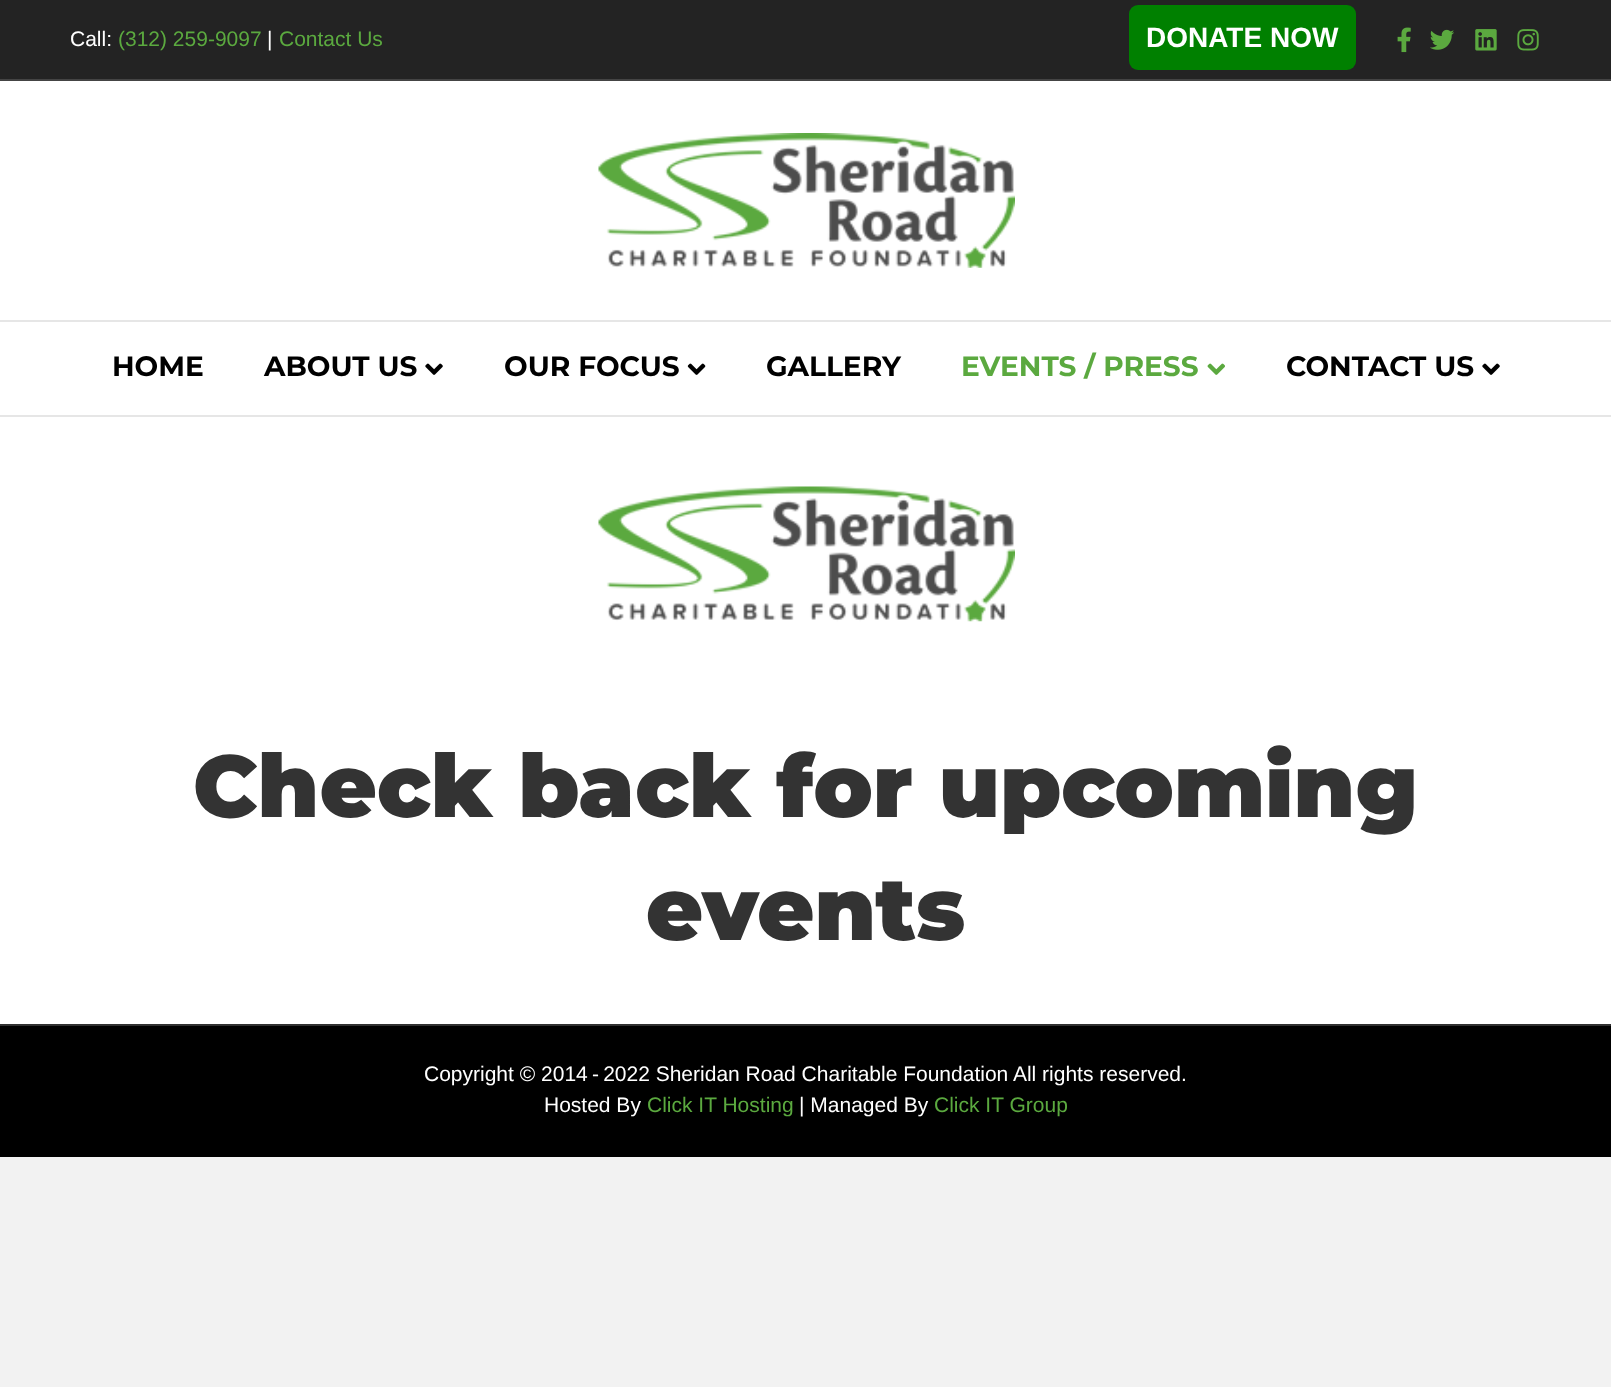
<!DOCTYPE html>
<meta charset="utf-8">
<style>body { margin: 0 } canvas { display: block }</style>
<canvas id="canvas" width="1611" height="1387"></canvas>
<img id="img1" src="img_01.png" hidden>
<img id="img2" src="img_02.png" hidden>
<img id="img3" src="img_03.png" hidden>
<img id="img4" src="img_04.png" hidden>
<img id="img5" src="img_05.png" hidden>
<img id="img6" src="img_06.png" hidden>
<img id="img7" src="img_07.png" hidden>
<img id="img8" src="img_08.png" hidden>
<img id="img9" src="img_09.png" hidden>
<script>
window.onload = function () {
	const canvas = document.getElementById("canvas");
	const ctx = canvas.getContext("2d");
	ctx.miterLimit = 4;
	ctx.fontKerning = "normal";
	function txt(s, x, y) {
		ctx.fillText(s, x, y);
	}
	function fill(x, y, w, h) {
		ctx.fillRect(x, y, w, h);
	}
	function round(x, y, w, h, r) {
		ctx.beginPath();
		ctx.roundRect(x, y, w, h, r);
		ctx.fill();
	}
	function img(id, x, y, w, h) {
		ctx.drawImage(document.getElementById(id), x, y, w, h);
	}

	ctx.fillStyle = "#F2F2F2";
	fill(0, 0, 1611, 1387);
	ctx.fillStyle = "#232323";
	fill(0, 0, 1611, 79);
	ctx.fillStyle = "#444444";
	fill(0, 79, 1611, 2);
	ctx.fillStyle = "#008000";
	round(1129, 5, 227, 65, 9);
	img("img1", 1397, 27, 14, 26);
	img("img2", 1430, 29, 24, 21);
	img("img3", 1475, 29, 22, 22);
	img("img4", 1517, 29, 22, 22);
	ctx.fillStyle = "#FFFFFF";
	fill(0, 81, 1611, 334);
	img("img5", 598, 133, 417, 135);
	ctx.fillStyle = "#E6E6E6";
	fill(0, 320, 1611, 2);
	fill(0, 415, 1611, 2);
	img("img6", 425, 363, 18, 12);
	img("img7", 687, 363, 19, 12);
	img("img8", 1207, 363, 18, 12);
	img("img6", 1482, 363, 18, 12);
	ctx.fillStyle = "#FFFFFF";
	fill(0, 417, 1611, 607);
	img("img9", 598, 486, 417, 136);
	ctx.fillStyle = "#000000";
	fill(0, 1026, 1611, 131);
	ctx.fillStyle = "#303030";
	fill(0, 1024, 1611, 2);
	ctx.font = "21px Liberation Sans";
	ctx.fillStyle = "#FFFFFF";
	txt("Call:", 70, 46);
	ctx.fillStyle = "#5BA93F";
	txt("(312) 259-9097", 118, 46);
	ctx.fillStyle = "#FFFFFF";
	txt("|", 267, 46);
	ctx.fillStyle = "#5BA93F";
	txt("Contact Us", 279, 46);
	ctx.font = "bold 28px Liberation Sans";
	ctx.fillStyle = "#FFFFFF";
	txt("DONATE NOW", 1146, 47);
	ctx.font = "bold 28px Montserrat";
	ctx.fillStyle = "#000000";
	txt("HOME", 112, 376);
	txt("ABOUT US", 264, 376);
	txt("OUR FOCUS", 504, 376);
	txt("GALLERY", 766, 376);
	ctx.fillStyle = "#5BA93F";
	txt("EVENTS / PRESS", 961, 376);
	ctx.fillStyle = "#000000";
	txt("CONTACT US", 1286, 376);
	ctx.font = "900 87.5px Montserrat";
	ctx.fillStyle = "#333333";
	txt("Check back for upcoming", 193, 817);
	txt("events", 646, 940);
	ctx.font = "21px Liberation Sans";
	ctx.fillStyle = "#FFFFFF";
	txt("Copyright © 2014 - 2022 Sheridan Road Charitable Foundation All rights reserved.", 424, 1081);
	txt("Hosted By", 544, 1112);
	ctx.fillStyle = "#5BA93F";
	txt("Click IT Hosting", 647, 1112);
	ctx.fillStyle = "#FFFFFF";
	txt("| Managed By", 799, 1112);
	ctx.fillStyle = "#5BA93F";
	txt("Click IT Group", 934, 1112);
};
</script>
